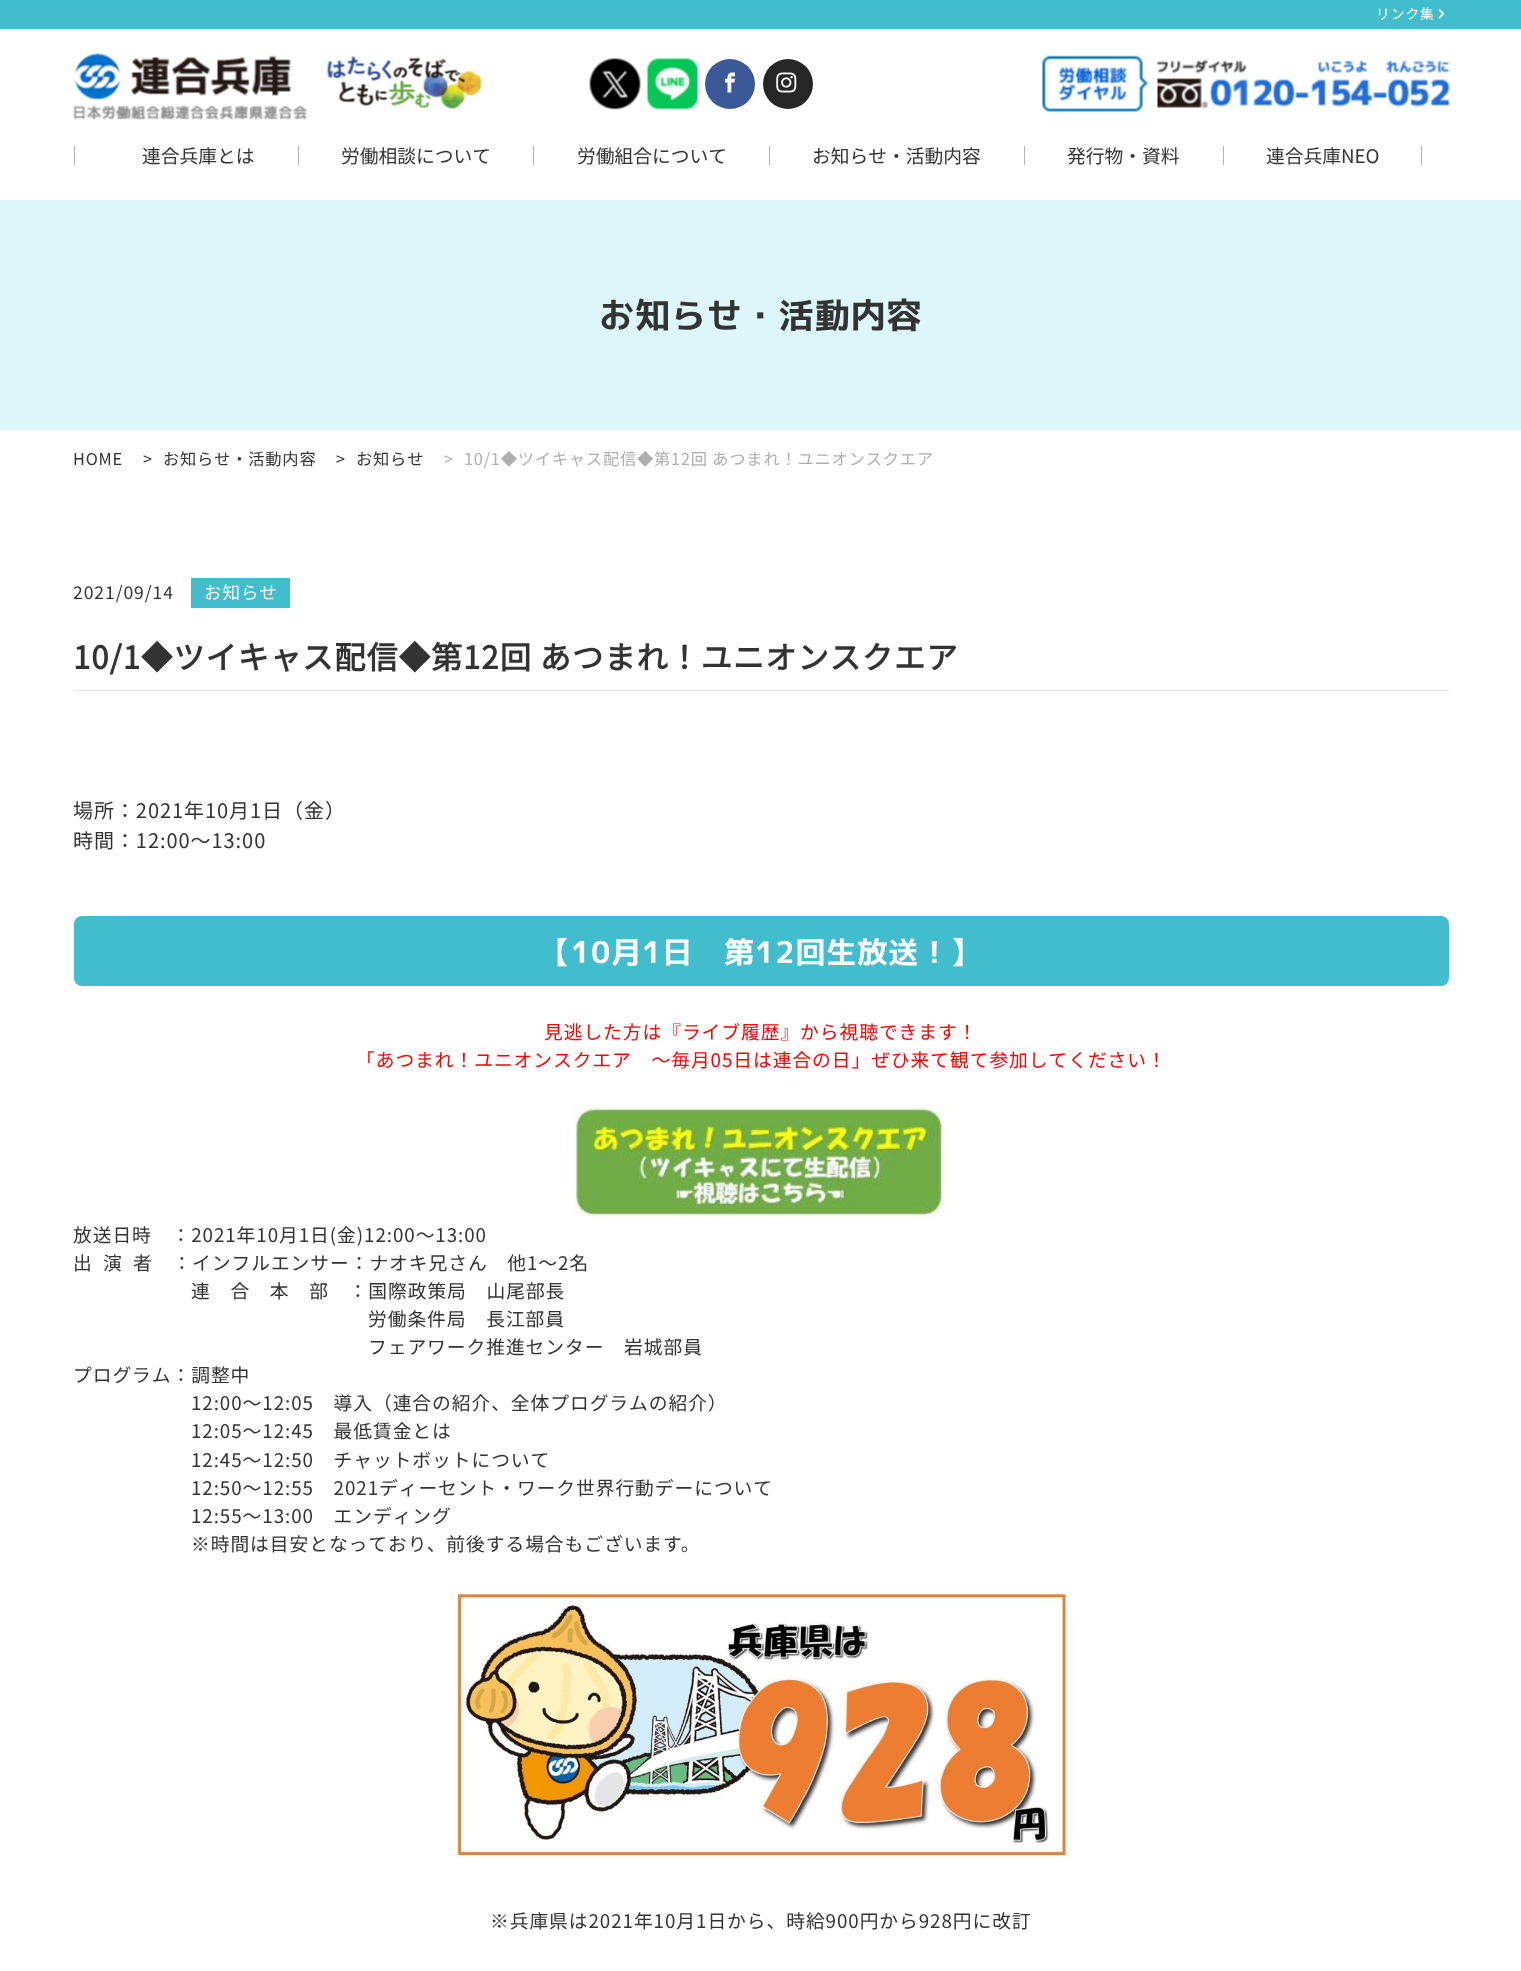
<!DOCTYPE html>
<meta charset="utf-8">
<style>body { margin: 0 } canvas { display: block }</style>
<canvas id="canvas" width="1521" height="1971"></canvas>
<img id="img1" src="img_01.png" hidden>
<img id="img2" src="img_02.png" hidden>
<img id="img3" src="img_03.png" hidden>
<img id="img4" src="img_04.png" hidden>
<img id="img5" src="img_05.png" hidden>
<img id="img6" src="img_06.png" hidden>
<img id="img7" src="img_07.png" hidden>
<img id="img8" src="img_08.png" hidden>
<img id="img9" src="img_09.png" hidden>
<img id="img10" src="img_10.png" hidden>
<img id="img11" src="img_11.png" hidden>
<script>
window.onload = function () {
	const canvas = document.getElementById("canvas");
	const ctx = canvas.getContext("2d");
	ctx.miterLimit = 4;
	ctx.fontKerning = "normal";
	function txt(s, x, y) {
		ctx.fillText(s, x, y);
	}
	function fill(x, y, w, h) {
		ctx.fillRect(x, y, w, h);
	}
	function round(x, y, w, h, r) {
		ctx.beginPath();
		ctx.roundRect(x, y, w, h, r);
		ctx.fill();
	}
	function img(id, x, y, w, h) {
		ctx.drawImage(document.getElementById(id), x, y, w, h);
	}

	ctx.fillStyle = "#FFFFFF";
	fill(0, 0, 1521, 1971);
	ctx.fillStyle = "#42BDCD";
	fill(0, 0, 1521, 29);
	img("img1", 1438, 8, 7, 11);
	img("img2", 73, 53, 235, 68);
	img("img3", 327, 56, 155, 53);
	img("img4", 589, 58, 52, 52);
	img("img5", 647, 58, 51, 52);
	ctx.fillStyle = "#3B5998";
	ctx.beginPath();
	ctx.arc(730, 84, 25, 0, Math.PI * 2);
	ctx.fill();
	img("img6", 725, 72, 10, 21);
	ctx.fillStyle = "#262626";
	ctx.beginPath();
	ctx.arc(788, 84, 25, 0, Math.PI * 2);
	ctx.fill();
	img("img7", 776, 72, 21, 21);
	img("img8", 1042, 55, 106, 57);
	img("img9", 1157, 59, 293, 49);
	ctx.fillStyle = "#B4B3B3";
	fill(74, 146, 1, 19);
	fill(298, 146, 1, 19);
	fill(533, 146, 1, 19);
	fill(769, 146, 1, 19);
	fill(1024, 146, 1, 19);
	fill(1223, 146, 1, 19);
	fill(1421, 146, 1, 19);
	ctx.fillStyle = "#DCF6F9";
	fill(0, 200, 1521, 230);
	ctx.fillStyle = "#42BDCD";
	fill(191, 578, 99, 30);
	ctx.fillStyle = "#E6E6E6";
	fill(74, 690, 1375, 1);
	ctx.fillStyle = "#42BDCD";
	round(74, 916, 1375, 70, 8);
	img("img10", 573, 1105, 376, 115);
	img("img11", 451, 1587, 620, 271);
	ctx.letterSpacing = "0.95px";
	ctx.font = "100 13.75px Noto Sans JP";
	ctx.fillStyle = "#FFFFFF";
	txt("リンク集", 1376, 19);
	ctx.letterSpacing = "0px";
	ctx.font = "100 18.75px Noto Sans JP";
	ctx.fillStyle = "#333333";
	txt("連合兵庫とは", 142, 163);
	txt("労働相談について", 341, 163);
	txt("労働組合について", 577, 163);
	txt("お知らせ・活動内容", 812, 163);
	txt("発行物・資料", 1067, 163);
	txt("連合兵庫NEO", 1266, 163);
	ctx.letterSpacing = "0.95px";
	ctx.font = "bold 35px 'M PLUS 1p'";
	txt("お知らせ・活動内容", 599, 328);
	ctx.letterSpacing = "0.8px";
	ctx.font = "100 16.25px Noto Sans JP";
	txt("HOME", 73, 465);
	txt(">", 143, 465);
	txt("お知らせ・活動内容", 163, 465);
	txt(">", 336, 465);
	txt("お知らせ", 356, 465);
	ctx.fillStyle = "#AFAFAF";
	txt(">", 444, 465);
	txt("10/1◆ツイキャス配信◆第12回 あつまれ！ユニオンスクエア", 464, 465);
	ctx.letterSpacing = "0.95px";
	ctx.font = "100 17.5px Noto Sans JP";
	ctx.fillStyle = "#333333";
	txt("2021/09/14", 73, 599);
	ctx.fillStyle = "#FFFFFF";
	txt("お知らせ", 204, 599);
	ctx.font = "bold 31.25px Noto Sans JP";
	ctx.fillStyle = "#333333";
	txt("10/1◆ツイキャス配信◆第12回 あつまれ！ユニオンスクエア", 73, 669);
	ctx.font = "100 20px Noto Sans JP";
	txt("場所：2021年10月1日（金）", 73, 818);
	txt("時間：12:00～13:00", 73, 848);
	ctx.font = "bold 30px 'M PLUS 1p'";
	ctx.fillStyle = "#FFFFFF";
	txt("【10月1日　第12回生放送！】", 540, 963);
	ctx.font = "100 18.75px Noto Sans JP";
	ctx.fillStyle = "#FF0000";
	txt("見逃した方は『ライブ履歴』から視聴できます！", 544, 1039);
	txt("「あつまれ！ユニオンスクエア　～毎月05日は連合の日」ぜひ来て観て参加してください！", 356, 1067);
	ctx.fillStyle = "#333333";
	txt("放送日時　：2021年10月1日(金)12:00～13:00", 73, 1242);
	txt("出  演  者　：インフルエンサー：ナオキ兄さん　他1～2名", 73, 1270);
	txt("連　合　本　部　：国際政策局　山尾部長", 191, 1298);
	txt("労働条件局　長江部員", 368, 1326);
	txt("フェアワーク推進センター　岩城部員", 368, 1354);
	txt("プログラム：調整中", 73, 1382);
	txt("12:00～12:05　導入（連合の紹介、全体プログラムの紹介）", 191, 1410);
	txt("12:05～12:45　最低賃金とは", 191, 1438);
	txt("12:45～12:50　チャットボットについて", 191, 1467);
	txt("12:50～12:55　2021ディーセント・ワーク世界行動デーについて", 191, 1495);
	txt("12:55～13:00　エンディング", 191, 1523);
	txt("※時間は目安となっており、前後する場合もございます。", 191, 1551);
	txt("※兵庫県は2021年10月1日から、時給900円から928円に改訂", 490, 1928);
};
</script>
